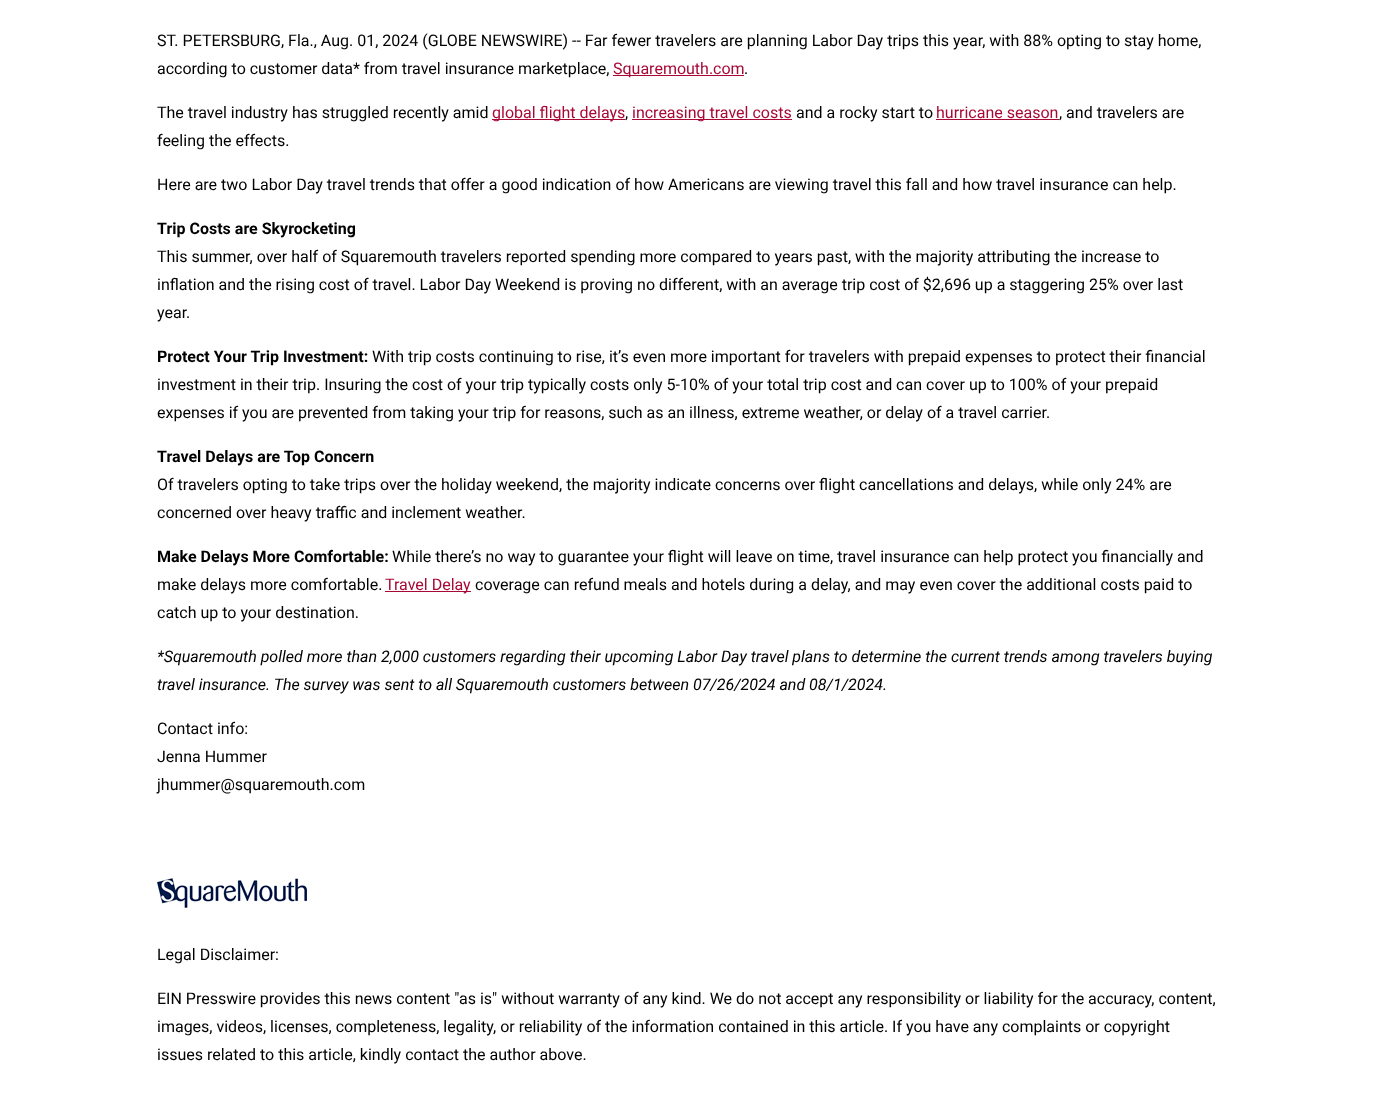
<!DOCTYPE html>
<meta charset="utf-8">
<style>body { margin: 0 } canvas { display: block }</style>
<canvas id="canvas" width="1373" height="1098"></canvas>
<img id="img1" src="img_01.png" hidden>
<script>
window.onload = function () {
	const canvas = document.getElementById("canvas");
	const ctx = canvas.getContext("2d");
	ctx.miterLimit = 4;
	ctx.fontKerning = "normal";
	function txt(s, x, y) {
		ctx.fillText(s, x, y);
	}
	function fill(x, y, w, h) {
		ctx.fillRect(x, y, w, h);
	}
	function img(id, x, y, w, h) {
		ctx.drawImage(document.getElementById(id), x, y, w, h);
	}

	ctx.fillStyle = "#FFFFFF";
	fill(0, 0, 1373, 1098);
	ctx.fillStyle = "#A90835";
	fill(613, 75, 131, 1);
	fill(492, 119, 133, 1);
	fill(632, 119, 160, 1);
	fill(936, 119, 123, 1);
	fill(385, 591, 86, 1);
	img("img1", 157, 878, 150, 30);
	ctx.font = "16px Roboto";
	ctx.fillStyle = "#000000";
	txt("ST. PETERSBURG, Fla., Aug. 01, 2024 (GLOBE NEWSWIRE) -- Far fewer travelers are planning Labor Day trips this year, with 88% opting to stay home,", 157, 46);
	txt("according to customer data* from travel insurance marketplace,", 157, 74);
	ctx.fillStyle = "#A90835";
	txt("Squaremouth.com", 613, 74);
	ctx.fillStyle = "#000000";
	txt(".", 744, 74);
	txt("The travel industry has struggled recently amid", 157, 118);
	ctx.fillStyle = "#A90835";
	txt("global flight delays", 492, 118);
	ctx.fillStyle = "#000000";
	txt(",", 625, 118);
	ctx.fillStyle = "#A90835";
	txt("increasing travel costs", 632, 118);
	ctx.fillStyle = "#000000";
	txt("and a rocky start to", 796, 118);
	ctx.fillStyle = "#A90835";
	txt("hurricane season", 936, 118);
	ctx.fillStyle = "#000000";
	txt(", and travelers are", 1059, 118);
	txt("feeling the effects.", 157, 146);
	txt("Here are two Labor Day travel trends that offer a good indication of how Americans are viewing travel this fall and how travel insurance can help.", 157, 190);
	ctx.save();
	ctx.beginPath();
	ctx.rect(157, 11, 1060, 1075);
	ctx.clip();
	ctx.font = "bold 16px Roboto";
	txt("Trip Costs are Skyrocketing", 157, 234);
	ctx.restore();
	txt("This summer, over half of Squaremouth travelers reported spending more compared to years past, with the majority attributing the increase to", 157, 262);
	txt("inflation and the rising cost of travel. Labor Day Weekend is proving no different, with an average trip cost of $2,696 up a staggering 25% over last", 157, 290);
	txt("year.", 157, 318);
	ctx.font = "bold 16px Roboto";
	txt("Protect Your Trip Investment:", 157, 362);
	ctx.font = "16px Roboto";
	txt("With trip costs continuing to rise, it’s even more important for travelers with prepaid expenses to protect their financial", 372, 362);
	txt("investment in their trip. Insuring the cost of your trip typically costs only 5-10% of your total trip cost and can cover up to 100% of your prepaid", 157, 390);
	txt("expenses if you are prevented from taking your trip for reasons, such as an illness, extreme weather, or delay of a travel carrier.", 157, 418);
	ctx.save();
	ctx.beginPath();
	ctx.rect(157, 11, 1060, 1075);
	ctx.clip();
	ctx.font = "bold 16px Roboto";
	txt("Travel Delays are Top Concern", 157, 462);
	ctx.restore();
	txt("Of travelers opting to take trips over the holiday weekend, the majority indicate concerns over flight cancellations and delays, while only 24% are", 157, 490);
	txt("concerned over heavy traffic and inclement weather.", 157, 518);
	ctx.font = "bold 16px Roboto";
	txt("Make Delays More Comfortable:", 157, 562);
	ctx.font = "16px Roboto";
	txt("While there’s no way to guarantee your flight will leave on time, travel insurance can help protect you financially and", 392, 562);
	txt("make delays more comfortable.", 157, 590);
	ctx.fillStyle = "#A90835";
	txt("Travel Delay", 385, 590);
	ctx.fillStyle = "#000000";
	txt("coverage can refund meals and hotels during a delay, and may even cover the additional costs paid to", 475, 590);
	txt("catch up to your destination.", 157, 618);
	ctx.font = "italic 16px Roboto";
	txt("*Squaremouth polled more than 2,000 customers regarding their upcoming Labor Day travel plans to determine the current trends among travelers buying", 157, 662);
	txt("travel insurance. The survey was sent to all Squaremouth customers between 07/26/2024 and 08/1/2024.", 157, 690);
	ctx.font = "16px Roboto";
	txt("Contact info:", 157, 734);
	txt("Jenna Hummer", 157, 762);
	txt("jhummer@squaremouth.com", 157, 790);
	txt("Legal Disclaimer:", 157, 960);
	txt("EIN Presswire provides this news content \"as is\" without warranty of any kind. We do not accept any responsibility or liability for the accuracy, content,", 157, 1004);
	txt("images, videos, licenses, completeness, legality, or reliability of the information contained in this article. If you have any complaints or copyright", 157, 1032);
	txt("issues related to this article, kindly contact the author above.", 157, 1060);
};
</script>
